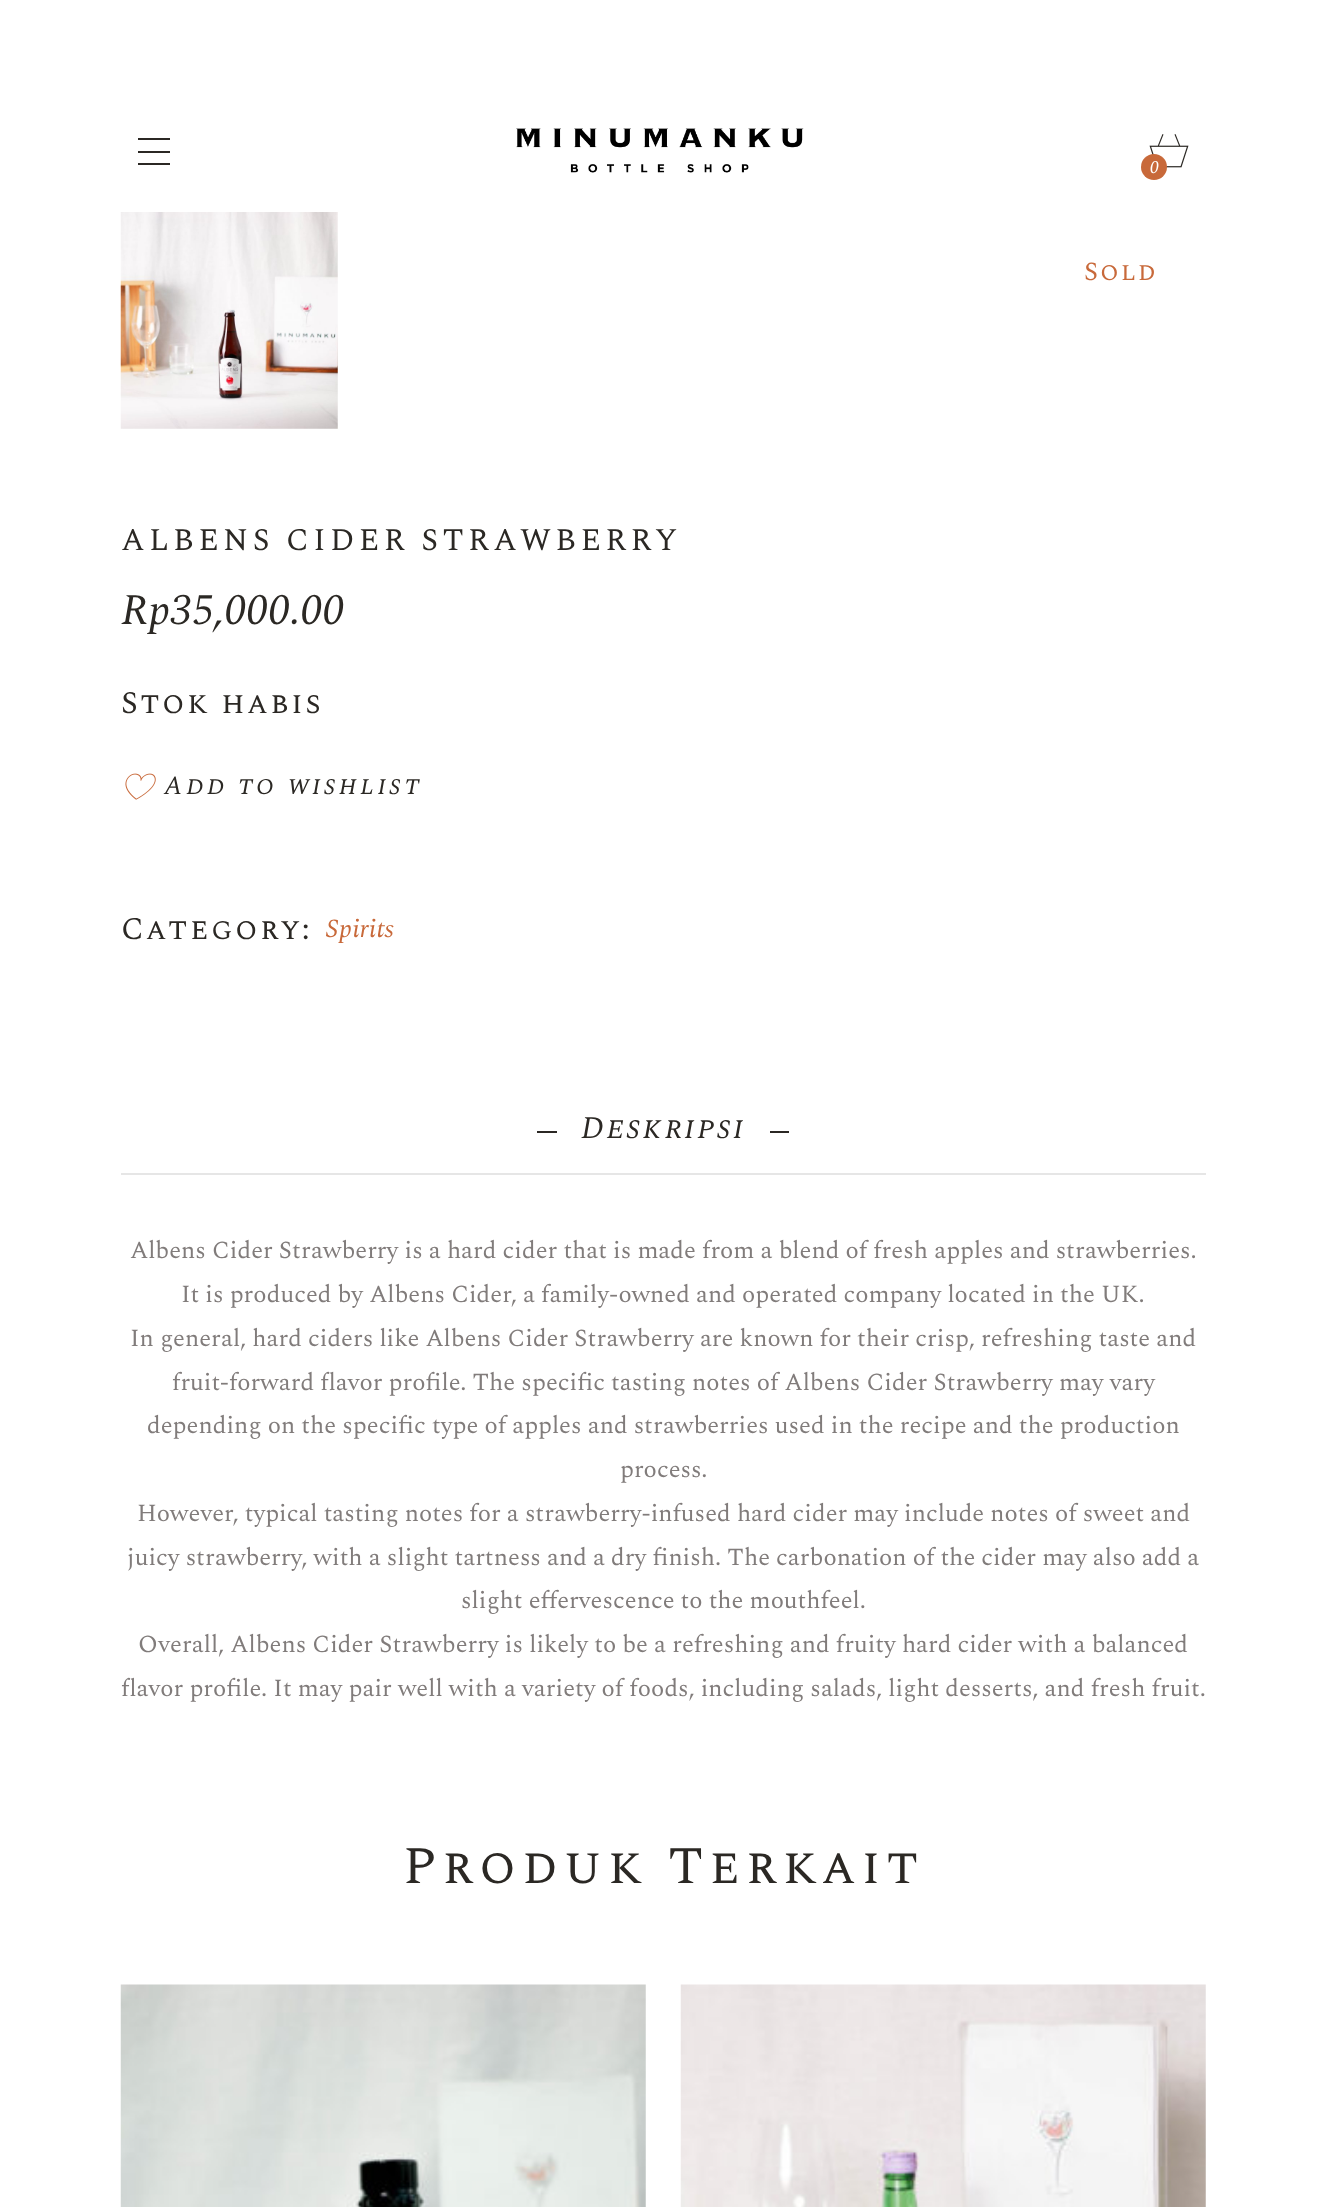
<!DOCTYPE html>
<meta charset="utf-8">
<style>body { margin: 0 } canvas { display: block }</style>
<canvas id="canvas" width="1326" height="2207"></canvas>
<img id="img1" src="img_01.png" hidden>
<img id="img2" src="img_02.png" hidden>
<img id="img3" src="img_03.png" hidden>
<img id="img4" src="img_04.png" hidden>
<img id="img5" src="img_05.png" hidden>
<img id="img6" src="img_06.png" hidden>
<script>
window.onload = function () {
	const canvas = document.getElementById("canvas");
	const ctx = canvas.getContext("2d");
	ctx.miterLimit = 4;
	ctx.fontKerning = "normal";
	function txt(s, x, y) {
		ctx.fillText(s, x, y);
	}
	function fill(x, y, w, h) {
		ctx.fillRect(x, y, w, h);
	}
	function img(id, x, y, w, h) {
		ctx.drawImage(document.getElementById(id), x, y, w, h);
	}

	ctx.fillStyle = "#FFFFFF";
	fill(0, 0, 1326, 2207);
	ctx.fillStyle = "#2B2824";
	fill(138, 138, 32, 2);
	fill(138, 151, 32, 2);
	fill(138, 163, 32, 2);
	img("img1", 516, 128, 288, 45);
	img("img2", 1149, 134, 40, 34);
	ctx.fillStyle = "#C8693A";
	ctx.beginPath();
	ctx.arc(1154, 167, 13, 0, Math.PI * 2);
	ctx.fill();
	img("img3", 120, 212, 218, 217);
	img("img4", 125, 773, 31, 27);
	ctx.fillStyle = "#E6E6E6";
	fill(121, 1173, 1085, 2);
	ctx.fillStyle = "#2B2824";
	fill(537, 1131, 20, 2);
	fill(770, 1131, 19, 2);
	img("img5", 120, 1984, 526, 223);
	img("img6", 680, 1984, 526, 223);
	ctx.font = "italic 18px Spectral";
	ctx.fillStyle = "#FFFFFF";
	txt("0", 1150, 173);
	ctx.letterSpacing = "2px";
	ctx.font = "26.25px Spectral SC";
	ctx.fillStyle = "#C8693A";
	txt("Sold", 1084, 280);
	ctx.letterSpacing = "4.4px";
	ctx.font = "31.5px Spectral SC";
	ctx.fillStyle = "#2B2824";
	txt("ALBENS CIDER STRAWBERRY", 121, 550);
	ctx.letterSpacing = "0px";
	ctx.font = "italic 43.75px Spectral";
	txt("Rp35,000.00", 121, 624);
	ctx.letterSpacing = "2.5px";
	ctx.font = "31.5px Spectral SC";
	txt("Stok habis", 121, 713);
	ctx.letterSpacing = "3.4px";
	ctx.font = "italic 26.25px Spectral SC";
	txt("Add to wishlist", 164, 794);
	ctx.letterSpacing = "2.5px";
	ctx.font = "31.5px Spectral SC";
	txt("Category:", 121, 939);
	ctx.letterSpacing = "0px";
	ctx.font = "italic 26.25px Spectral";
	ctx.fillStyle = "#C8693A";
	txt("Spirits", 326, 937);
	ctx.letterSpacing = "2.5px";
	ctx.font = "italic 31.5px Spectral SC";
	ctx.fillStyle = "#2B2824";
	txt("Deskripsi", 581, 1138);
	ctx.letterSpacing = "0px";
	ctx.font = "24.5px Spectral";
	ctx.fillStyle = "#817C7B";
	txt("Albens Cider Strawberry is a hard cider that is made from a blend of fresh apples and strawberries.", 130, 1258);
	txt("It is produced by Albens Cider, a family-owned and operated company located in the UK.", 181, 1302);
	txt("In general, hard ciders like Albens Cider Strawberry are known for their crisp, refreshing taste and", 130, 1346);
	txt("fruit-forward flavor profile. The specific tasting notes of Albens Cider Strawberry may vary", 172, 1390);
	txt("depending on the specific type of apples and strawberries used in the recipe and the production", 147, 1433);
	txt("process.", 620, 1477);
	txt("However, typical tasting notes for a strawberry-infused hard cider may include notes of sweet and", 137, 1521);
	txt("juicy strawberry, with a slight tartness and a dry finish. The carbonation of the cider may also add a", 127, 1565);
	txt("slight effervescence to the mouthfeel.", 461, 1608);
	txt("Overall, Albens Cider Strawberry is likely to be a refreshing and fruity hard cider with a balanced", 138, 1652);
	txt("flavor profile. It may pair well with a variety of foods, including salads, light desserts, and fresh fruit.", 121, 1696);
	ctx.letterSpacing = "5.75px";
	ctx.font = "52.5px Spectral SC";
	ctx.fillStyle = "#2B2824";
	txt("Produk Terkait", 403, 1883);
};
</script>
